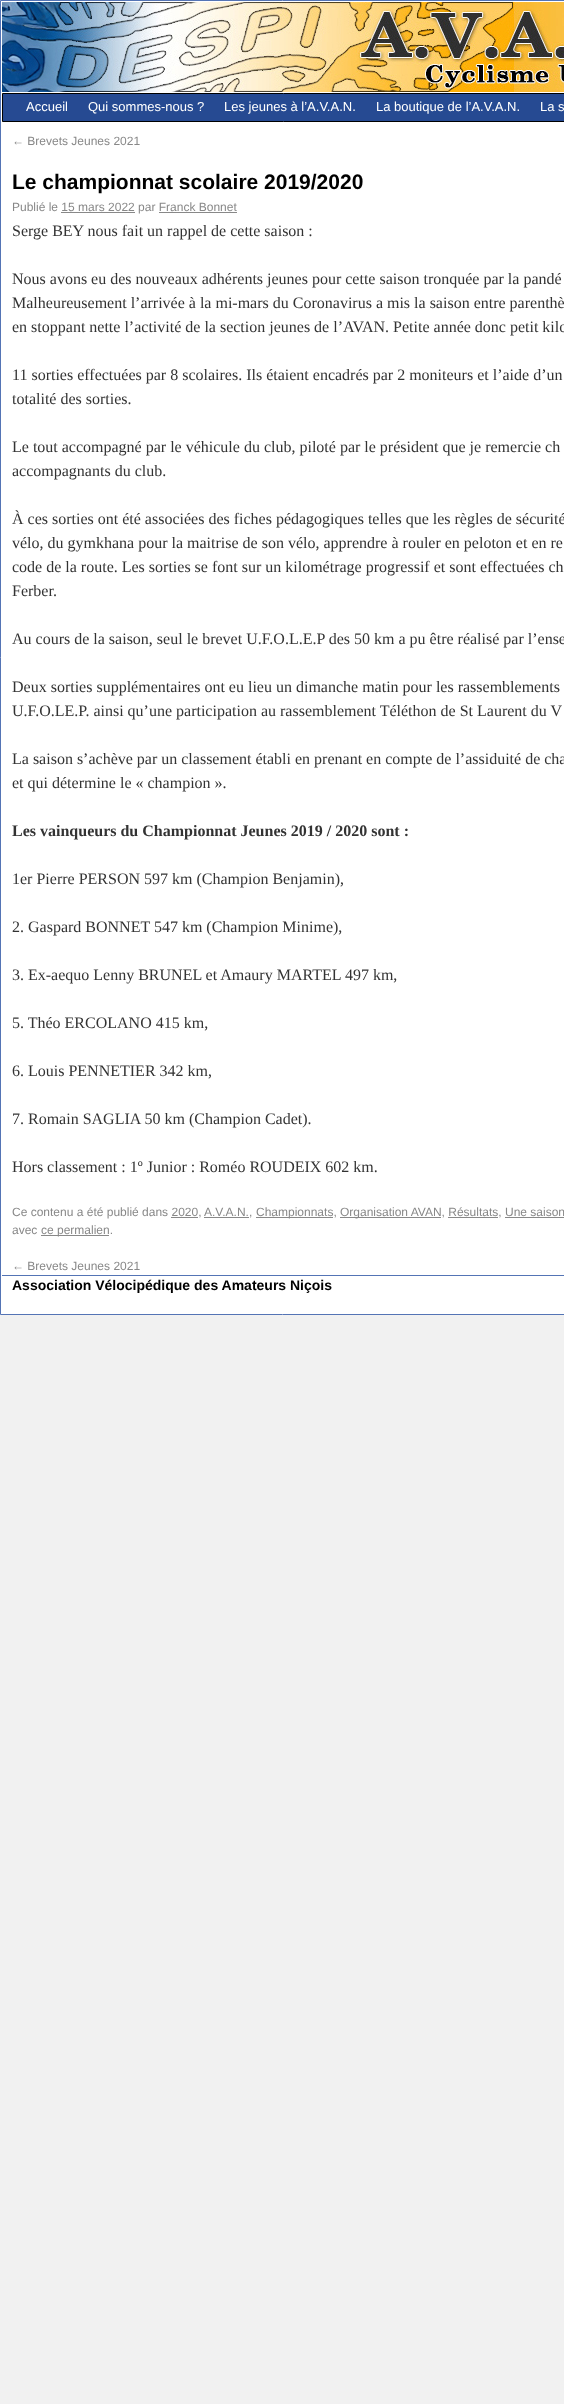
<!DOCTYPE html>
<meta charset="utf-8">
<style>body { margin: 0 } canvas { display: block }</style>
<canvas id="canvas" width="564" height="2404"></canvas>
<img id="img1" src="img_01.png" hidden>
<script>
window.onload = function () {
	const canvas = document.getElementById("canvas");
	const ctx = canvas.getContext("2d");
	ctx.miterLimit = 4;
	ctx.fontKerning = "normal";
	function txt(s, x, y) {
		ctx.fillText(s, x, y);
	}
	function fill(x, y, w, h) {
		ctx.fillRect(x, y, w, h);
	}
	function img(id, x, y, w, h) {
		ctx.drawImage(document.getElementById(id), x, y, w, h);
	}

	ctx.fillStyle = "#F1F1F1";
	fill(0, 0, 564, 2404);
	ctx.fillStyle = "#FFFFFF";
	ctx.beginPath();
	ctx.rect(0.5, 0.5, 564, 1314);
	ctx.fill();
	ctx.strokeStyle = "#5474B5";
	ctx.stroke();
	img("img1", 2, 2, 562, 90);
	ctx.fillStyle = "#264A92";
	ctx.beginPath();
	ctx.rect(2.5, 93.5, 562, 28);
	ctx.fill();
	ctx.strokeStyle = "#000000";
	ctx.stroke();
	ctx.fillStyle = "#888888";
	fill(61, 212, 74, 1);
	fill(159, 212, 78, 1);
	fill(204, 1217, 45, 1);
	fill(256, 1217, 77, 1);
	fill(340, 1217, 101, 1);
	fill(171, 1217, 27, 1);
	fill(448, 1217, 50, 1);
	fill(505, 1217, 59, 1);
	fill(41, 1235, 68, 1);
	ctx.fillStyle = "#5474B5";
	fill(2, 1275, 562, 1);
	ctx.font = "13px Liberation Sans";
	ctx.fillStyle = "#FFFFFF";
	txt("Accueil", 26, 111);
	txt("Qui sommes-nous ?", 88, 111);
	txt("Les jeunes à l’A.V.A.N.", 224, 111);
	txt("La boutique de l’A.V.A.N.", 376, 111);
	txt("La s", 540, 111);
	ctx.font = "12px Liberation Sans";
	ctx.fillStyle = "#888888";
	txt("← Brevets Jeunes 2021", 12, 145);
	ctx.font = "bold 21px Liberation Sans";
	ctx.fillStyle = "#000000";
	txt("Le championnat scolaire 2019/2020", 12, 189);
	ctx.font = "12px Liberation Sans";
	ctx.fillStyle = "#888888";
	txt("Publié le 15 mars 2022 par Franck Bonnet", 12, 211);
	ctx.font = "16px Liberation Serif";
	ctx.fillStyle = "#333333";
	txt("Serge BEY nous fait un rappel de cette saison :", 12, 236);
	txt("Nous avons eu des nouveaux adhérents jeunes pour cette saison tronquée par la pandé", 12, 284);
	txt("Malheureusement l’arrivée à la mi-mars du Coronavirus a mis la saison entre parenthè", 12, 308);
	txt("en stoppant nette l’activité de la section jeunes de l’AVAN. Petite année donc petit kilo", 12, 332);
	txt("11 sorties effectuées par 8 scolaires. Ils étaient encadrés par 2 moniteurs et l’aide d’un", 12, 380);
	txt("totalité des sorties.", 12, 404);
	txt("Le tout accompagné par le véhicule du club, piloté par le président que je remercie ch", 12, 452);
	txt("accompagnants du club.", 12, 476);
	txt("À ces sorties ont été associées des fiches pédagogiques telles que les règles de sécurité", 12, 524);
	txt("vélo, du gymkhana pour la maitrise de son vélo, apprendre à rouler en peloton et en re", 12, 548);
	txt("code de la route. Les sorties se font sur un kilométrage progressif et sont effectuées ch", 12, 572);
	txt("Ferber.", 12, 596);
	txt("Au cours de la saison, seul le brevet U.F.O.L.E.P des 50 km a pu être réalisé par l’ense", 12, 644);
	txt("Deux sorties supplémentaires ont eu lieu un dimanche matin pour les rassemblements", 12, 692);
	txt("U.F.O.LE.P. ainsi qu’une participation au rassemblement Téléthon de St Laurent du V", 12, 716);
	txt("La saison s’achève par un classement établi en prenant en compte de l’assiduité de cha", 12, 764);
	txt("et qui détermine le « champion ».", 12, 788);
	ctx.font = "bold 16px Liberation Serif";
	txt("Les vainqueurs du Championnat Jeunes 2019 / 2020 sont :", 12, 836);
	ctx.font = "16px Liberation Serif";
	txt("1er Pierre PERSON 597 km (Champion Benjamin),", 12, 884);
	txt("2. Gaspard BONNET 547 km (Champion Minime),", 12, 932);
	txt("3. Ex-aequo Lenny BRUNEL et Amaury MARTEL 497 km,", 12, 980);
	txt("5. Théo ERCOLANO 415 km,", 12, 1028);
	txt("6. Louis PENNETIER 342 km,", 12, 1076);
	txt("7. Romain SAGLIA 50 km (Champion Cadet).", 12, 1124);
	txt("Hors classement : 1º Junior : Roméo ROUDEIX 602 km.", 12, 1172);
	ctx.font = "12px Liberation Sans";
	ctx.fillStyle = "#888888";
	txt("Ce contenu a été publié dans 2020,", 12, 1216);
	txt("A.V.A.N.,", 204, 1216);
	txt("Championnats,", 256, 1216);
	txt("Organisation AVAN, Résultats, Une saison", 340, 1216);
	txt("avec", 12, 1234);
	txt("ce permalien.", 41, 1234);
	txt("← Brevets Jeunes 2021", 12, 1270);
	ctx.font = "bold 14px Liberation Sans";
	ctx.fillStyle = "#000000";
	txt("Association Vélocipédique des Amateurs Niçois", 12, 1290);
};
</script>
